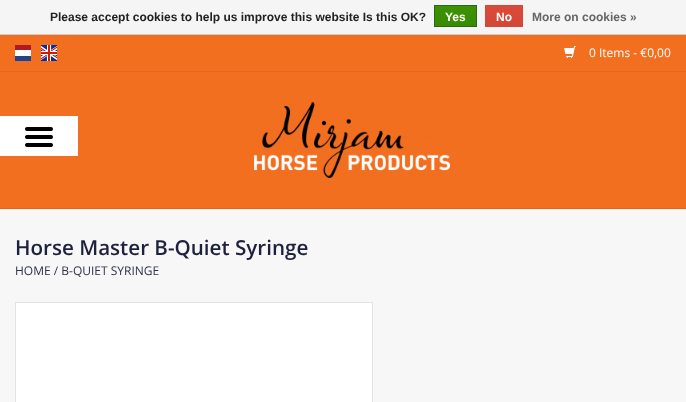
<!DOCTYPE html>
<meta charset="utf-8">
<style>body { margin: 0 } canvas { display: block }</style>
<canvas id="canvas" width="686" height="402"></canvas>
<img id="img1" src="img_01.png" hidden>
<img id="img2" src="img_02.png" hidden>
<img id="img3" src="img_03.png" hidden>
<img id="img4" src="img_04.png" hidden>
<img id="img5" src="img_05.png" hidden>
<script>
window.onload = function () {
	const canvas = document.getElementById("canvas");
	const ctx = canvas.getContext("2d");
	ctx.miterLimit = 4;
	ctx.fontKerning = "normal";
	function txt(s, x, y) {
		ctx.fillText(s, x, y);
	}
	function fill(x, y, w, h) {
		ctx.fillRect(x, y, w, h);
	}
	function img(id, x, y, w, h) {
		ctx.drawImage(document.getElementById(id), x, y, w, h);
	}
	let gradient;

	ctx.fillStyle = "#F36F20";
	fill(0, 0, 686, 402);
	ctx.fillStyle = "#F5F5F5";
	fill(0, 0, 686, 34);
	ctx.fillStyle = "#CCCCCC";
	fill(0, 34, 686, 1);
	gradient = ctx.createLinearGradient(456, 6, 456, 26);
	gradient.addColorStop(0, "#3C9300");
	gradient.addColorStop(1, "#398A00");
	ctx.fillStyle = gradient;
	fill(435, 6, 41, 20);
	ctx.strokeStyle = "#29691D";
	ctx.strokeRect(434.5, 5.5, 42, 21);
	gradient = ctx.createLinearGradient(504, 6, 504, 26);
	gradient.addColorStop(0, "#DC4A38");
	gradient.addColorStop(1, "#D14836");
	ctx.fillStyle = gradient;
	fill(486, 6, 36, 20);
	ctx.strokeStyle = "#D14836";
	ctx.strokeRect(485.5, 5.5, 37, 21);
	ctx.fillStyle = "#E1671D";
	fill(0, 71, 686, 1);
	img("img1", 15, 45, 16, 16);
	img("img2", 41, 45, 16, 16);
	img("img3", 564, 46, 12, 12);
	ctx.fillStyle = "#DF661D";
	fill(0, 208, 686, 1);
	img("img4", 254, 102, 196, 76);
	ctx.fillStyle = "#FFFFFF";
	fill(0, 116, 78, 40);
	img("img5", 25, 127, 28, 20);
	ctx.fillStyle = "#F7F7F7";
	fill(0, 209, 686, 193);
	ctx.strokeStyle = "#E3E3E3";
	ctx.strokeRect(15.5, 302.5, 357, 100);
	ctx.fillStyle = "#FFFFFF";
	fill(16, 303, 356, 99);
	ctx.font = "bold 12px Liberation Sans";
	ctx.fillStyle = "#222222";
	txt("Please accept cookies to help us improve this website Is this OK?", 50, 21);
	ctx.fillStyle = "#FFFFFF";
	txt("Yes", 445, 21);
	txt("No", 496, 21);
	ctx.fillStyle = "#666666";
	txt("More on cookies »", 532, 21);
	ctx.font = "12px Open Sans";
	ctx.fillStyle = "#FFFFFF";
	txt("0 Items - €0,00", 589, 57);
	ctx.font = "600 20.6px Open Sans";
	ctx.fillStyle = "#1E213D";
	txt("Horse Master B-Quiet Syringe", 15, 255);
	ctx.font = "12px Open Sans";
	ctx.fillStyle = "#30324C";
	txt("HOME / B-QUIET SYRINGE", 15, 275);
};
</script>
